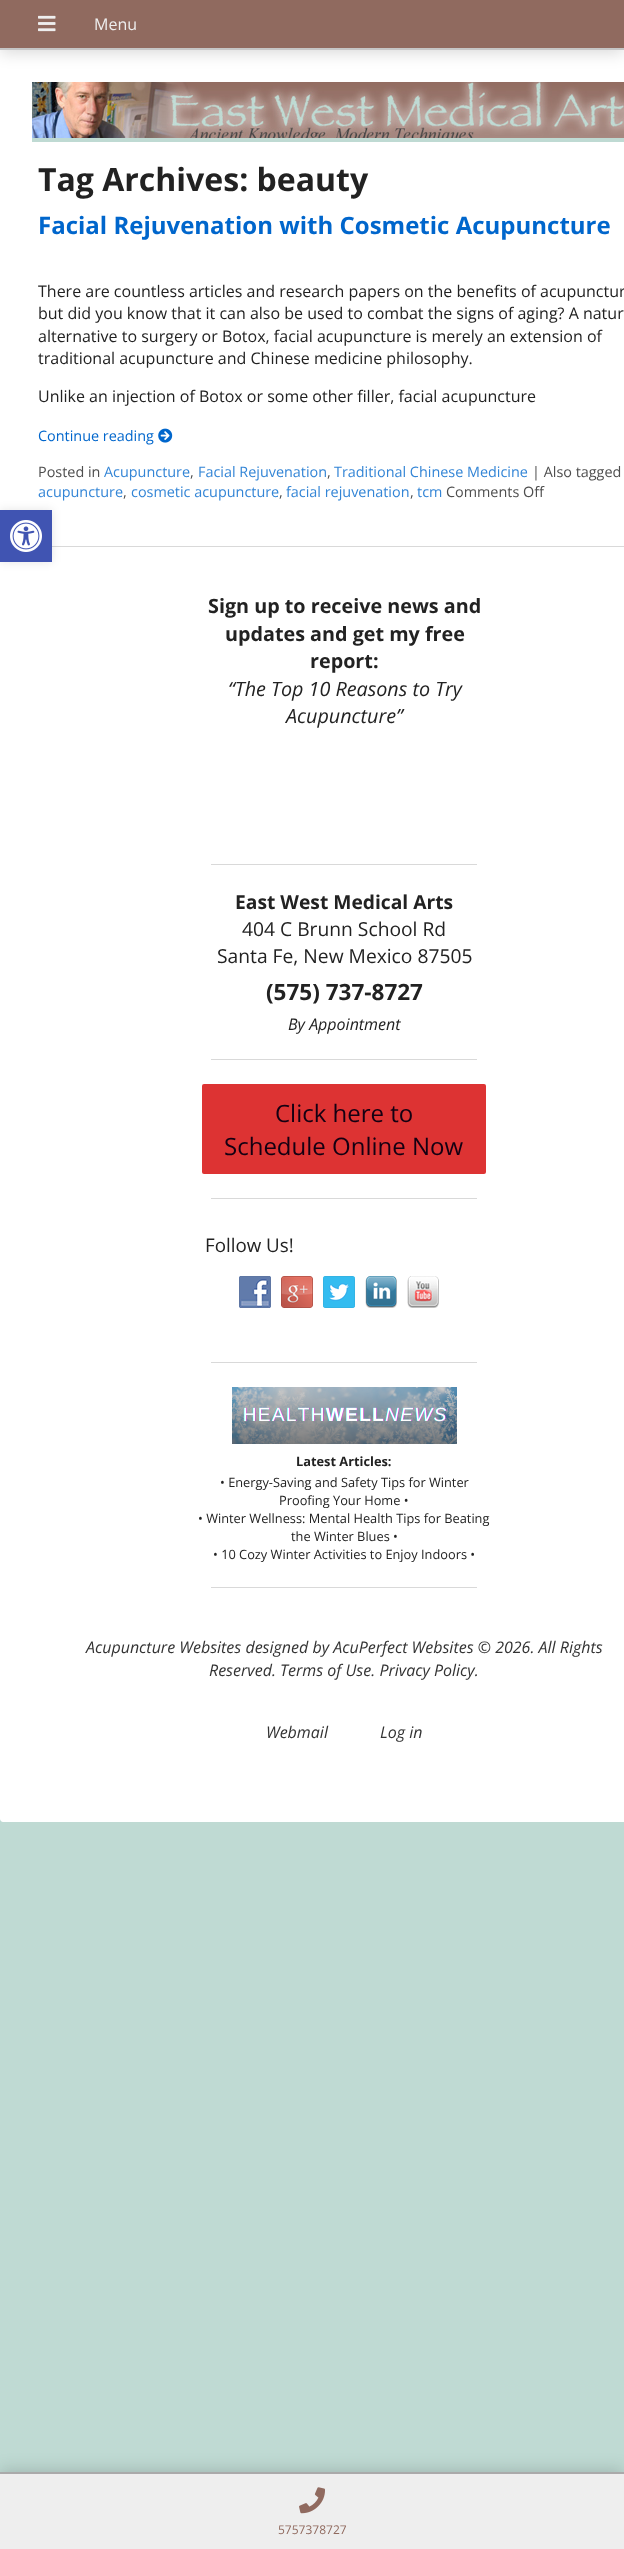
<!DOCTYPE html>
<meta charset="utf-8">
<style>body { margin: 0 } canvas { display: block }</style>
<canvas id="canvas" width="624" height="2549"></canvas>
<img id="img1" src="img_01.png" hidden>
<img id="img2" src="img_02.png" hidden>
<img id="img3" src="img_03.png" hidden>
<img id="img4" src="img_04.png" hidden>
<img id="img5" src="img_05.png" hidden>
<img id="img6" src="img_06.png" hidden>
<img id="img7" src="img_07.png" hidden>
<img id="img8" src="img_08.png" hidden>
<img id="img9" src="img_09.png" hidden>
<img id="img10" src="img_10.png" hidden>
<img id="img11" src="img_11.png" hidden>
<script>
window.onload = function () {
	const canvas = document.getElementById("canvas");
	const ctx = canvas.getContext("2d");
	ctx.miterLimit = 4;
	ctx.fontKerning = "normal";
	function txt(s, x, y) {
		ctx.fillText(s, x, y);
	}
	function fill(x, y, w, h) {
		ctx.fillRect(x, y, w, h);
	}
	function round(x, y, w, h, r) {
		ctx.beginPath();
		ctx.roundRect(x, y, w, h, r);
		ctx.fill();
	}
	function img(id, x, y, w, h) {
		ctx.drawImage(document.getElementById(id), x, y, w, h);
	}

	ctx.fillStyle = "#BFDAD3";
	fill(0, 0, 624, 2549);
	ctx.fillStyle = "#FFFFFF";
	ctx.beginPath();
	ctx.moveTo(0, 50);
	ctx.lineTo(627, 50);
	ctx.lineTo(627, 1819);
	ctx.bezierCurveTo(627, 1820.5, 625.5, 1822, 624, 1822);
	ctx.lineTo(3, 1822);
	ctx.bezierCurveTo(1.5, 1822, 0, 1820.5, 0, 1819);
	ctx.closePath();
	ctx.fill();
	ctx.fillStyle = "#D9D9D9";
	fill(52, 546, 572, 1);
	ctx.fillStyle = "rgba(0, 0, 0, 0.1)";
	ctx.filter = "blur(5px)";
	ctx.beginPath();
	ctx.rect(0, 510, 52, 52);
	ctx.fill();
	ctx.filter = "none";
	ctx.fillStyle = "#4054B2";
	fill(0, 510, 52, 52);
	img("img1", 10, 520, 32, 32);
	ctx.fillStyle = "rgba(0, 0, 0, 0.15)";
	ctx.filter = "blur(8px)";
	ctx.beginPath();
	ctx.rect(0, 3, 624, 50);
	ctx.fill();
	ctx.filter = "none";
	ctx.fillStyle = "#906A5F";
	fill(0, 0, 624, 48);
	ctx.fillStyle = "#C6C6C6";
	fill(0, 48, 624, 2);
	img("img2", 38, 15, 18, 17);
	img("img3", 32, 82, 592, 56);
	ctx.fillStyle = "#BFDAD3";
	fill(32, 138, 592, 4);
	img("img4", 158, 428, 15, 15);
	ctx.fillStyle = "#D9D9D9";
	fill(211, 864, 266, 1);
	fill(211, 1059, 266, 1);
	ctx.fillStyle = "#DD3333";
	round(202, 1084, 284, 90, 2);
	ctx.fillStyle = "#D9D9D9";
	fill(211, 1198, 266, 1);
	img("img5", 239, 1276, 32, 32);
	img("img6", 281, 1276, 32, 32);
	img("img7", 323, 1276, 32, 32);
	img("img8", 365, 1276, 32, 32);
	img("img9", 407, 1276, 32, 32);
	fill(211, 1362, 266, 1);
	img("img10", 232, 1387, 225, 57);
	fill(211, 1587, 266, 1);
	ctx.fillStyle = "rgba(0, 0, 0, 0.15)";
	ctx.filter = "blur(8px)";
	ctx.beginPath();
	ctx.rect(0, 2469, 624, 77);
	ctx.fill();
	ctx.filter = "none";
	ctx.fillStyle = "#EEEEEE";
	fill(0, 2474, 624, 75);
	ctx.fillStyle = "#AAAAAA";
	fill(0, 2472, 624, 2);
	img("img11", 299, 2487, 26, 27);
	ctx.font = "16px Open Sans";
	ctx.fillStyle = "#EEEEEE";
	txt("Menu", 94, 30);
	ctx.font = "bold 32px Open Sans";
	ctx.fillStyle = "#222222";
	txt("Tag Archives: beauty", 38, 191);
	ctx.font = "bold 24px Open Sans";
	ctx.fillStyle = "#0066CC";
	txt("Facial Rejuvenation with Cosmetic Acupuncture", 38, 234);
	ctx.font = "16px Open Sans";
	ctx.fillStyle = "#222222";
	txt("There are countless articles and research papers on the benefits of acupunctur", 38, 297);
	txt("but did you know that it can also be used to combat the signs of aging? A natur", 38, 319);
	txt("alternative to surgery or Botox, facial acupuncture is merely an extension of", 38, 342);
	txt("traditional acupuncture and Chinese medicine philosophy.", 38, 364);
	txt("Unlike an injection of Botox or some other filler, facial acupuncture", 38, 402);
	ctx.font = "14.4px Open Sans";
	ctx.fillStyle = "#0066CC";
	txt("Continue reading", 38, 441);
	ctx.fillStyle = "#4E4E4E";
	txt("Posted in", 38, 477);
	ctx.fillStyle = "#3385D6";
	txt("Acupuncture", 104, 477);
	ctx.fillStyle = "#4E4E4E";
	txt(",", 190, 477);
	ctx.fillStyle = "#3385D6";
	txt("Facial Rejuvenation", 198, 477);
	ctx.fillStyle = "#4E4E4E";
	txt(",", 327, 477);
	ctx.fillStyle = "#3385D6";
	txt("Traditional Chinese Medicine", 334, 477);
	ctx.fillStyle = "#4E4E4E";
	txt("| Also tagged", 532, 477);
	ctx.fillStyle = "#3385D6";
	txt("acupuncture", 38, 497);
	ctx.fillStyle = "#4E4E4E";
	txt(",", 123, 497);
	ctx.fillStyle = "#3385D6";
	txt("cosmetic acupuncture", 131, 497);
	ctx.fillStyle = "#4E4E4E";
	txt(",", 279, 497);
	ctx.fillStyle = "#3385D6";
	txt("facial rejuvenation", 286, 497);
	ctx.fillStyle = "#4E4E4E";
	txt(",", 410, 497);
	ctx.fillStyle = "#3385D6";
	txt("tcm", 417, 497);
	ctx.fillStyle = "#4E4E4E";
	txt("Comments Off", 446, 497);
	ctx.font = "bold 19.75px Open Sans";
	ctx.fillStyle = "#222222";
	txt("Sign up to receive news and", 208, 613);
	txt("updates and get my free", 225, 641);
	txt("report:", 310, 668);
	ctx.font = "italic 19.75px Open Sans";
	txt("“The Top 10 Reasons to Try", 228, 696);
	txt("Acupuncture”", 286, 723);
	ctx.font = "bold 19.25px Open Sans";
	txt("East West Medical Arts", 235, 909);
	ctx.font = "19.25px Open Sans";
	txt("404 C Brunn School Rd", 242, 936);
	txt("Santa Fe, New Mexico 87505", 217, 963);
	ctx.font = "bold 22.5px Open Sans";
	txt("(575) 737-8727", 266, 1000);
	ctx.font = "italic 16px Open Sans";
	txt("By Appointment", 288, 1030);
	ctx.font = "24px Open Sans";
	ctx.fillStyle = "#140012";
	txt("Click here to", 275, 1122);
	txt("Schedule Online Now", 224, 1155);
	ctx.font = "18.75px Open Sans";
	ctx.fillStyle = "#222222";
	txt("Follow Us!", 205, 1252);
	ctx.font = "bold 12.8px Open Sans";
	txt("Latest Articles:", 296, 1466);
	ctx.font = "12.8px Open Sans";
	txt("• Energy-Saving and Safety Tips for Winter", 220, 1487);
	txt("Proofing Your Home •", 279, 1505);
	txt("• Winter Wellness: Mental Health Tips for Beating", 198, 1523);
	txt("the Winter Blues •", 291, 1541);
	txt("• 10 Cozy Winter Activities to Enjoy Indoors •", 213, 1559);
	ctx.font = "italic 16px Open Sans";
	ctx.fillStyle = "#333333";
	txt("Acupuncture Websites designed by AcuPerfect Websites © 2026. All Rights", 86, 1653);
	txt("Reserved. Terms of Use. Privacy Policy.", 209, 1676);
	txt("Webmail", 266, 1738);
	txt("Log in", 380, 1738);
	ctx.font = "12px Open Sans";
	ctx.fillStyle = "#906A5F";
	txt("5757378727", 278, 2534);
};
</script>
